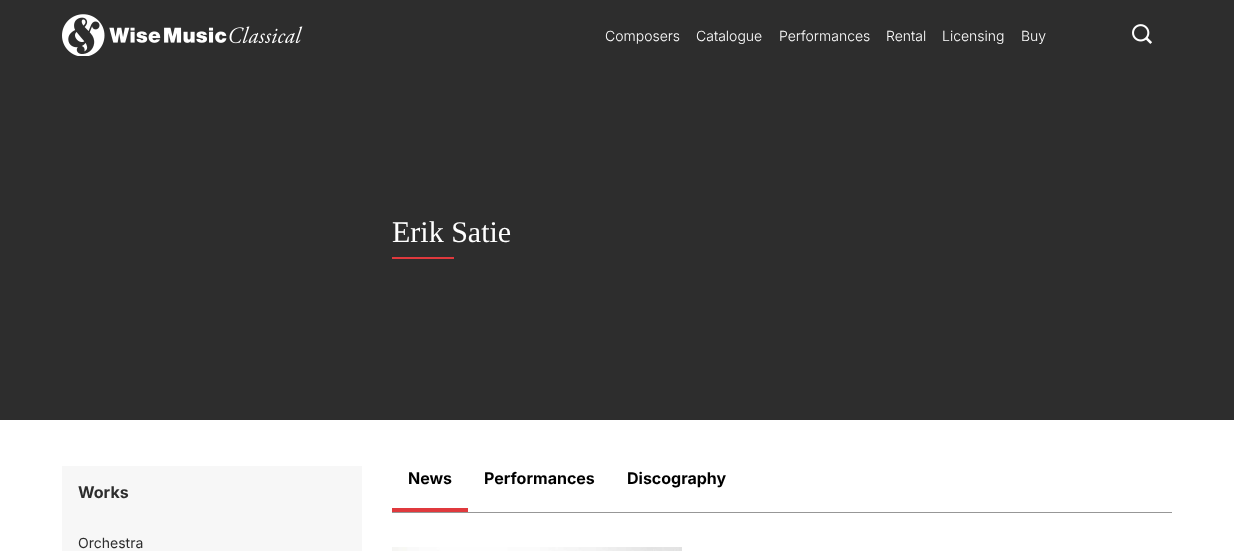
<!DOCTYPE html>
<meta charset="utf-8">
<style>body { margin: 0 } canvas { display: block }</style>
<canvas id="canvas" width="1234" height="551"></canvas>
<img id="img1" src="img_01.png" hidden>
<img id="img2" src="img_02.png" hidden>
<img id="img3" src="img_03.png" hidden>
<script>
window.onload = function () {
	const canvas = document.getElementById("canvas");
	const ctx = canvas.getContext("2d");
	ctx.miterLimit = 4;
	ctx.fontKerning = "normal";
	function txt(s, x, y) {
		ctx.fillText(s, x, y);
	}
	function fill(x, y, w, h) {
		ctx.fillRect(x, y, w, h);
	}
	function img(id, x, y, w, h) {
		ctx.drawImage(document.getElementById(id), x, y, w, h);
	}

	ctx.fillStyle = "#FFFFFF";
	fill(0, 0, 1234, 551);
	ctx.fillStyle = "#2D2D2D";
	fill(0, 0, 1234, 420);
	img("img1", 62, 14, 241, 42);
	img("img2", 1132, 24, 20, 20);
	ctx.fillStyle = "#E0393D";
	fill(392, 257, 62, 2);
	ctx.fillStyle = "#979797";
	fill(392, 512, 780, 1);
	ctx.fillStyle = "#E0393D";
	fill(392, 508, 76, 4);
	img("img3", 392, 547, 290, 4);
	ctx.fillStyle = "#F7F7F7";
	fill(62, 466, 300, 85);
	ctx.font = "300 14px Inter";
	ctx.fillStyle = "#FFFFFF";
	txt("Composers", 605, 41);
	txt("Catalogue", 696, 41);
	txt("Performances", 779, 41);
	txt("Rental", 886, 41);
	txt("Licensing", 942, 41);
	txt("Buy", 1021, 41);
	ctx.font = "30px Liberation Serif";
	txt("Erik Satie", 392, 242);
	ctx.font = "bold 16px Inter";
	ctx.fillStyle = "#000000";
	txt("News", 408, 484);
	txt("Performances", 484, 484);
	txt("Discography", 627, 484);
	ctx.fillStyle = "#2D2D2D";
	txt("Works", 78, 498);
	ctx.font = "14px Inter";
	txt("Orchestra", 78, 548);
};
</script>
